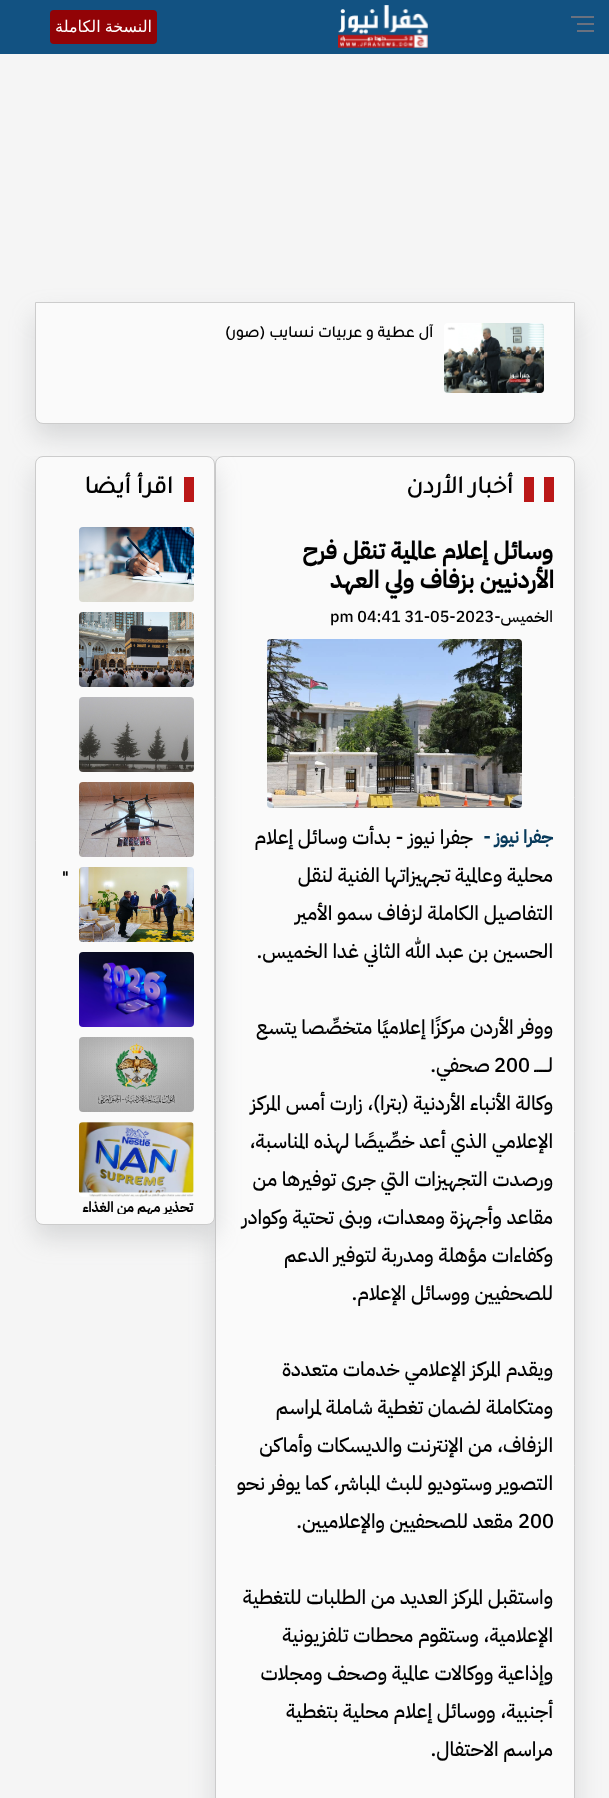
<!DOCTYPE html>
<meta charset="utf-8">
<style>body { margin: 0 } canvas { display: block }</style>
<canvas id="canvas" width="609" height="1798"></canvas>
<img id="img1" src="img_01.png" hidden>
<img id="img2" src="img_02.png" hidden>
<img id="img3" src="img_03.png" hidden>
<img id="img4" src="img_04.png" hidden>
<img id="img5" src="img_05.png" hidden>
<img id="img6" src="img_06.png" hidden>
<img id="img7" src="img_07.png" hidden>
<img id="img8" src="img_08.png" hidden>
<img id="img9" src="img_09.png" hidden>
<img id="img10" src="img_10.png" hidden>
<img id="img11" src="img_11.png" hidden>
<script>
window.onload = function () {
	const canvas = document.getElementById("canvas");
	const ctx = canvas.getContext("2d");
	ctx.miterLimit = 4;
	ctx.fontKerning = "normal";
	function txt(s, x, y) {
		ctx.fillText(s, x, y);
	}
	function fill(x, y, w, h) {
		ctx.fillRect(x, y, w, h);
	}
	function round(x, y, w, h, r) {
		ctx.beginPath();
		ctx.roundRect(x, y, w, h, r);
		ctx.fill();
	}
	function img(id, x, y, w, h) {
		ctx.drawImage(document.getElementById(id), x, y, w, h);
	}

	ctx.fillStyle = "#F5F5F5";
	fill(0, 0, 609, 1798);
	ctx.fillStyle = "rgba(0, 0, 0, 0.3)";
	ctx.filter = "blur(0.5px)";
	ctx.beginPath();
	ctx.rect(0, 0, 609, 54);
	ctx.fill();
	ctx.filter = "none";
	ctx.fillStyle = "#125282";
	fill(0, 0, 609, 54);
	ctx.fillStyle = "#6A717F";
	fill(577, 23, 17, 2);
	fill(571, 16, 23, 2);
	fill(577, 30, 17, 2);
	img("img1", 338, 5, 90, 43);
	ctx.fillStyle = "#920306";
	round(50, 10, 107, 34, 4);
	ctx.fillStyle = "rgba(153, 157, 160, 0.32)";
	ctx.filter = "blur(12px)";
	ctx.beginPath();
	ctx.roundRect(35, 315, 540, 122, 8);
	ctx.fill();
	ctx.filter = "none";
	ctx.fillStyle = "#FAFAFA";
	ctx.beginPath();
	ctx.roundRect(35.5, 302.5, 539, 121, [0, 0, 7.5, 7.5]);
	ctx.fill();
	ctx.strokeStyle = "#CCCCCC";
	ctx.stroke();
	img("img2", 444, 323, 100, 70);
	ctx.save();
	ctx.beginPath();
	ctx.rect(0, 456, 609, 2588);
	ctx.clip();
	ctx.fillStyle = "rgba(153, 157, 160, 0.32)";
	ctx.filter = "blur(12px)";
	ctx.beginPath();
	ctx.roundRect(215, 469, 360, 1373, 8);
	ctx.fill();
	ctx.filter = "none";
	ctx.restore();
	ctx.beginPath();
	ctx.roundRect(215.5, 456.5, 359, 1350, 7.5);
	ctx.fill();
	ctx.stroke();
	ctx.fillStyle = "#BA1717";
	fill(544, 477, 10, 25);
	fill(524, 477, 10, 25);
	img("img3", 267, 639, 255, 169);
	ctx.save();
	ctx.beginPath();
	ctx.rect(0, 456, 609, 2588);
	ctx.clip();
	ctx.fillStyle = "rgba(153, 157, 160, 0.32)";
	ctx.filter = "blur(12px)";
	ctx.beginPath();
	ctx.roundRect(35, 469, 180, 769, 8);
	ctx.fill();
	ctx.filter = "none";
	ctx.restore();
	ctx.fillStyle = "#FAFAFA";
	ctx.beginPath();
	ctx.roundRect(35.5, 456.5, 179, 768, 7.5);
	ctx.fill();
	ctx.stroke();
	ctx.fillStyle = "#BA1717";
	fill(184, 477, 10, 25);
	img("img4", 79, 527, 115, 75);
	img("img5", 79, 612, 115, 75);
	img("img6", 79, 697, 115, 75);
	img("img7", 79, 782, 115, 75);
	img("img8", 79, 867, 115, 75);
	img("img9", 79, 952, 115, 75);
	img("img10", 79, 1037, 115, 75);
	img("img11", 79, 1122, 115, 75);
	ctx.wordSpacing = "-1px";
	ctx.direction = "rtl";
	ctx.font = "16px DejaVu Sans";
	ctx.fillStyle = "#FFFFFF";
	txt("النسخة الكاملة", 152, 32);
	ctx.wordSpacing = "0px";
	ctx.font = "bold 16px Tajawal";
	ctx.fillStyle = "#000000";
	txt("آل عطية و عربيات نسايب (صور)", 433, 337);
	ctx.font = "bold 25px Tajawal";
	txt("أخبار الأردن", 513, 493);
	ctx.font = "bold 24px IBM Plex Sans Arabic";
	txt("وسائل إعلام عالمية تنقل فرح", 553, 559);
	txt("الأردنيين بزفاف ولي العهد", 554, 588);
	ctx.font = "500 16px IBM Plex Sans Arabic";
	txt("الخميس-", 553, 622);
	ctx.direction = "ltr";
	txt("pm 04:41 31-05-2023", 330, 622);
	ctx.direction = "rtl";
	ctx.font = "500 20px IBM Plex Sans Arabic";
	txt("جفرا نيوز - بدأت وسائل إعلام", 473, 844);
	txt("محلية وعالمية تجهيزاتها الفنية لنقل", 553, 882);
	txt("التفاصيل الكاملة لزفاف سمو الأمير", 553, 920);
	txt("الحسين بن عبد الله الثاني غدا الخميس.", 553, 958);
	ctx.font = "bold 18px IBM Plex Sans Arabic";
	ctx.fillStyle = "#083A5B";
	txt("جفرا نيوز -", 553, 843);
	ctx.font = "500 20px IBM Plex Sans Arabic";
	ctx.fillStyle = "#000000";
	txt("ووفر الأردن مركزًا إعلاميًا متخصِّصا يتسع", 553, 1034);
	txt("لــــــ", 553, 1072);
	ctx.direction = "ltr";
	txt("200", 494, 1072);
	ctx.direction = "rtl";
	txt("صحفي.", 490, 1072);
	txt("وكالة الأنباء الأردنية (بترا)، زارت أمس المركز", 553, 1110);
	txt("الإعلامي الذي أعد خصِّيصًا لهذه المناسبة،", 553, 1148);
	txt("ورصدت التجهيزات التي جرى توفيرها من", 553, 1186);
	txt("مقاعد وأجهزة ومعدات، وبنى تحتية وكوادر", 553, 1224);
	txt("وكفاءات مؤهلة ومدربة لتوفير الدعم", 553, 1262);
	txt("للصحفيين ووسائل الإعلام.", 553, 1300);
	txt("ويقدم المركز الإعلامي خدمات متعددة", 553, 1376);
	txt("ومتكاملة لضمان تغطية شاملة لمراسم", 553, 1414);
	txt("الزفاف، من الإنترنت والديسكات وأماكن", 553, 1452);
	txt("التصوير وستوديو للبث المباشر، كما يوفر نحو", 553, 1490);
	ctx.direction = "ltr";
	txt("200", 518, 1528);
	ctx.direction = "rtl";
	txt("مقعد للصحفيين والإعلاميين.", 513, 1528);
	txt("واستقبل المركز العديد من الطلبات للتغطية", 553, 1604);
	txt("الإعلامية، وستقوم محطات تلفزيونية", 553, 1642);
	txt("وإذاعية ووكالات عالمية وصحف ومجلات", 553, 1680);
	txt("أجنبية، ووسائل إعلام محلية بتغطية", 553, 1718);
	txt("مراسم الاحتفال.", 553, 1756);
	ctx.font = "bold 25px Tajawal";
	txt("اقرأ أيضا", 173, 493);
	ctx.direction = "ltr";
	ctx.font = "bold 14px IBM Plex Sans Arabic";
	txt("\"", 62, 882);
	ctx.save();
	ctx.beginPath();
	ctx.rect(46, 1122, 148, 92);
	ctx.clip();
	ctx.direction = "rtl";
	txt("تحذير مهم من الغذاء", 193, 1212);
	ctx.restore();
};
</script>
